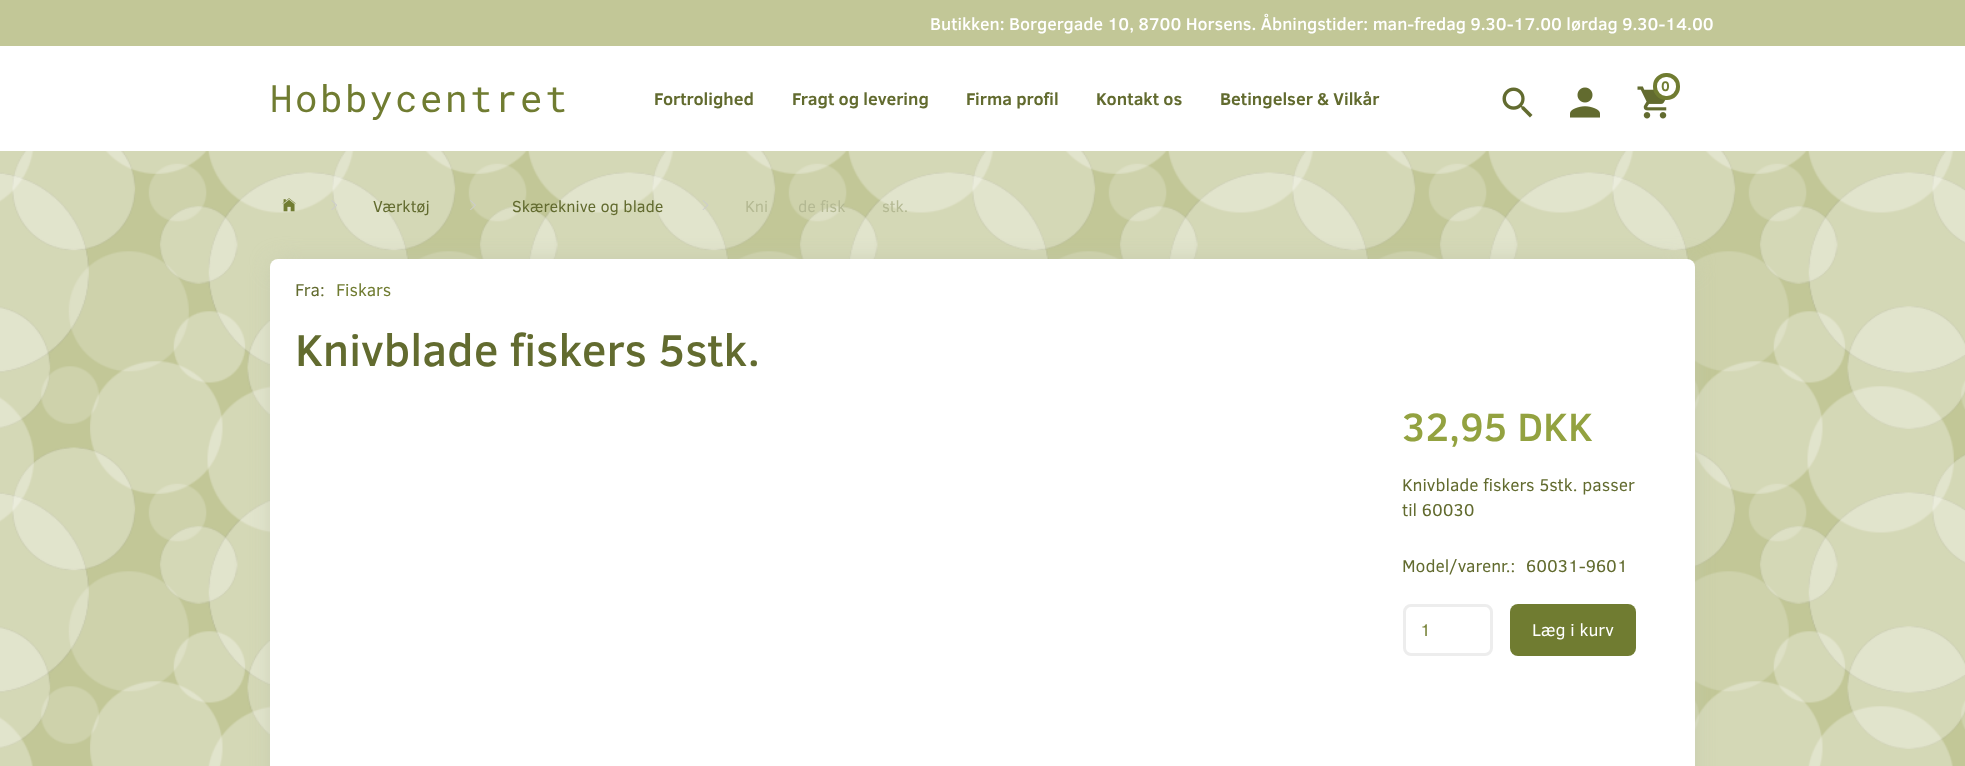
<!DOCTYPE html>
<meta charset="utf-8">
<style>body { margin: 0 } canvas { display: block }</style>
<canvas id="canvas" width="1965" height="766"></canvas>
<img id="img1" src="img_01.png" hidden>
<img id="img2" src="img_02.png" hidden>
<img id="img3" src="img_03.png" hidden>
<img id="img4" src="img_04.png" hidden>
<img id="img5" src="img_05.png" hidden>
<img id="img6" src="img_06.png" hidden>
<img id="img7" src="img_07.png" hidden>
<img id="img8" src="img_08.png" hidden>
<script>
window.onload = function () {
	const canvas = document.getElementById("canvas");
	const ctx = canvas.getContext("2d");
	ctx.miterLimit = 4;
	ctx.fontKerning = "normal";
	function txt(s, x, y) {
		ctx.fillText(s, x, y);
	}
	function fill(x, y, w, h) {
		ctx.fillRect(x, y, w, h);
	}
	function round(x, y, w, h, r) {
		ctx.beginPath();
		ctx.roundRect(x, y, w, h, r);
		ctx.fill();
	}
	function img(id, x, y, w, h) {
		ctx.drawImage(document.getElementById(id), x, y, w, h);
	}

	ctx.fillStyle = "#C2C797";
	fill(0, 0, 1965, 766);
	img("img1", 0, 151, 1965, 615);
	ctx.fillStyle = "#FFFFFF";
	fill(0, 46, 1965, 105);
	img("img2", 1502, 87, 31, 31);
	img("img3", 1570, 87, 30, 31);
	img("img4", 1637, 86, 30, 33);
	ctx.beginPath();
	ctx.roundRect(1655, 75, 23, 23, 11);
	ctx.fill();
	ctx.strokeStyle = "#707C31";
	ctx.lineWidth = 4;
	ctx.stroke();
	img("img5", 282, 198, 14, 14);
	img("img6", 331, 200, 6, 10);
	img("img7", 470, 200, 6, 10);
	img("img8", 702, 200, 7, 10);
	ctx.fillStyle = "#C1C5AB";
	ctx.filter = "blur(12.5px)";
	ctx.beginPath();
	ctx.roundRect(276, 265, 1413, 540, 1);
	ctx.fill();
	ctx.filter = "none";
	ctx.fillStyle = "#FFFFFF";
	round(270, 259, 1425, 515, 8);
	ctx.beginPath();
	ctx.roundRect(1404.5, 605.5, 87, 49, 6.5);
	ctx.strokeStyle = "#EDEDED";
	ctx.lineWidth = 3;
	ctx.stroke();
	ctx.fillStyle = "#707C31";
	round(1510, 604, 126, 52, 8);
	ctx.font = "500 17.5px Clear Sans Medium";
	ctx.fillStyle = "#FFFFFF";
	txt("Butikken: Borgergade 10, 8700 Horsens. Åbningstider: man-fredag 9.30-17.00 lørdag 9.30-14.00", 930, 30);
	ctx.letterSpacing = "2.5px";
	ctx.font = "37.5px Roboto Mono";
	ctx.fillStyle = "#707C31";
	txt("Hobbycentret", 270, 112);
	ctx.letterSpacing = "0px";
	ctx.font = "bold 14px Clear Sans";
	txt("0", 1661, 91);
	ctx.font = "bold 17.5px Clear Sans";
	ctx.fillStyle = "#626B2F";
	txt("Fortrolighed", 654, 105);
	txt("Fragt og levering", 792, 105);
	txt("Firma profil", 966, 105);
	txt("Kontakt os", 1096, 105);
	txt("Betingelser & Vilkår", 1220, 105);
	ctx.font = "16.25px Clear Sans";
	txt("Værktøj", 373, 212);
	txt("Skæreknive og blade", 512, 212);
	ctx.fillStyle = "#B4B993";
	txt("Kni", 745, 212);
	txt("de fisk", 798, 212);
	txt("stk.", 882, 212);
	ctx.font = "17.5px Clear Sans";
	ctx.fillStyle = "#626B2F";
	txt("Fra:", 295, 296);
	ctx.fillStyle = "#707C31";
	txt("Fiskars", 336, 296);
	ctx.font = "500 45.5px Clear Sans Medium";
	ctx.fillStyle = "#626B2F";
	txt("Knivblade fiskers 5stk.", 295, 366);
	ctx.font = "500 40.25px Clear Sans Medium";
	ctx.fillStyle = "#93A240";
	txt("32,95 DKK", 1402, 441);
	ctx.font = "17.5px Clear Sans";
	ctx.fillStyle = "#626B2F";
	txt("Knivblade fiskers 5stk. passer", 1402, 491);
	txt("til 60030", 1402, 516);
	txt("Model/varenr.:", 1402, 572);
	txt("60031-9601", 1526, 572);
	ctx.fillStyle = "#79843A";
	txt("1", 1420, 636);
	ctx.fillStyle = "#FFFFFF";
	txt("Læg i kurv", 1532, 636);
};
</script>
